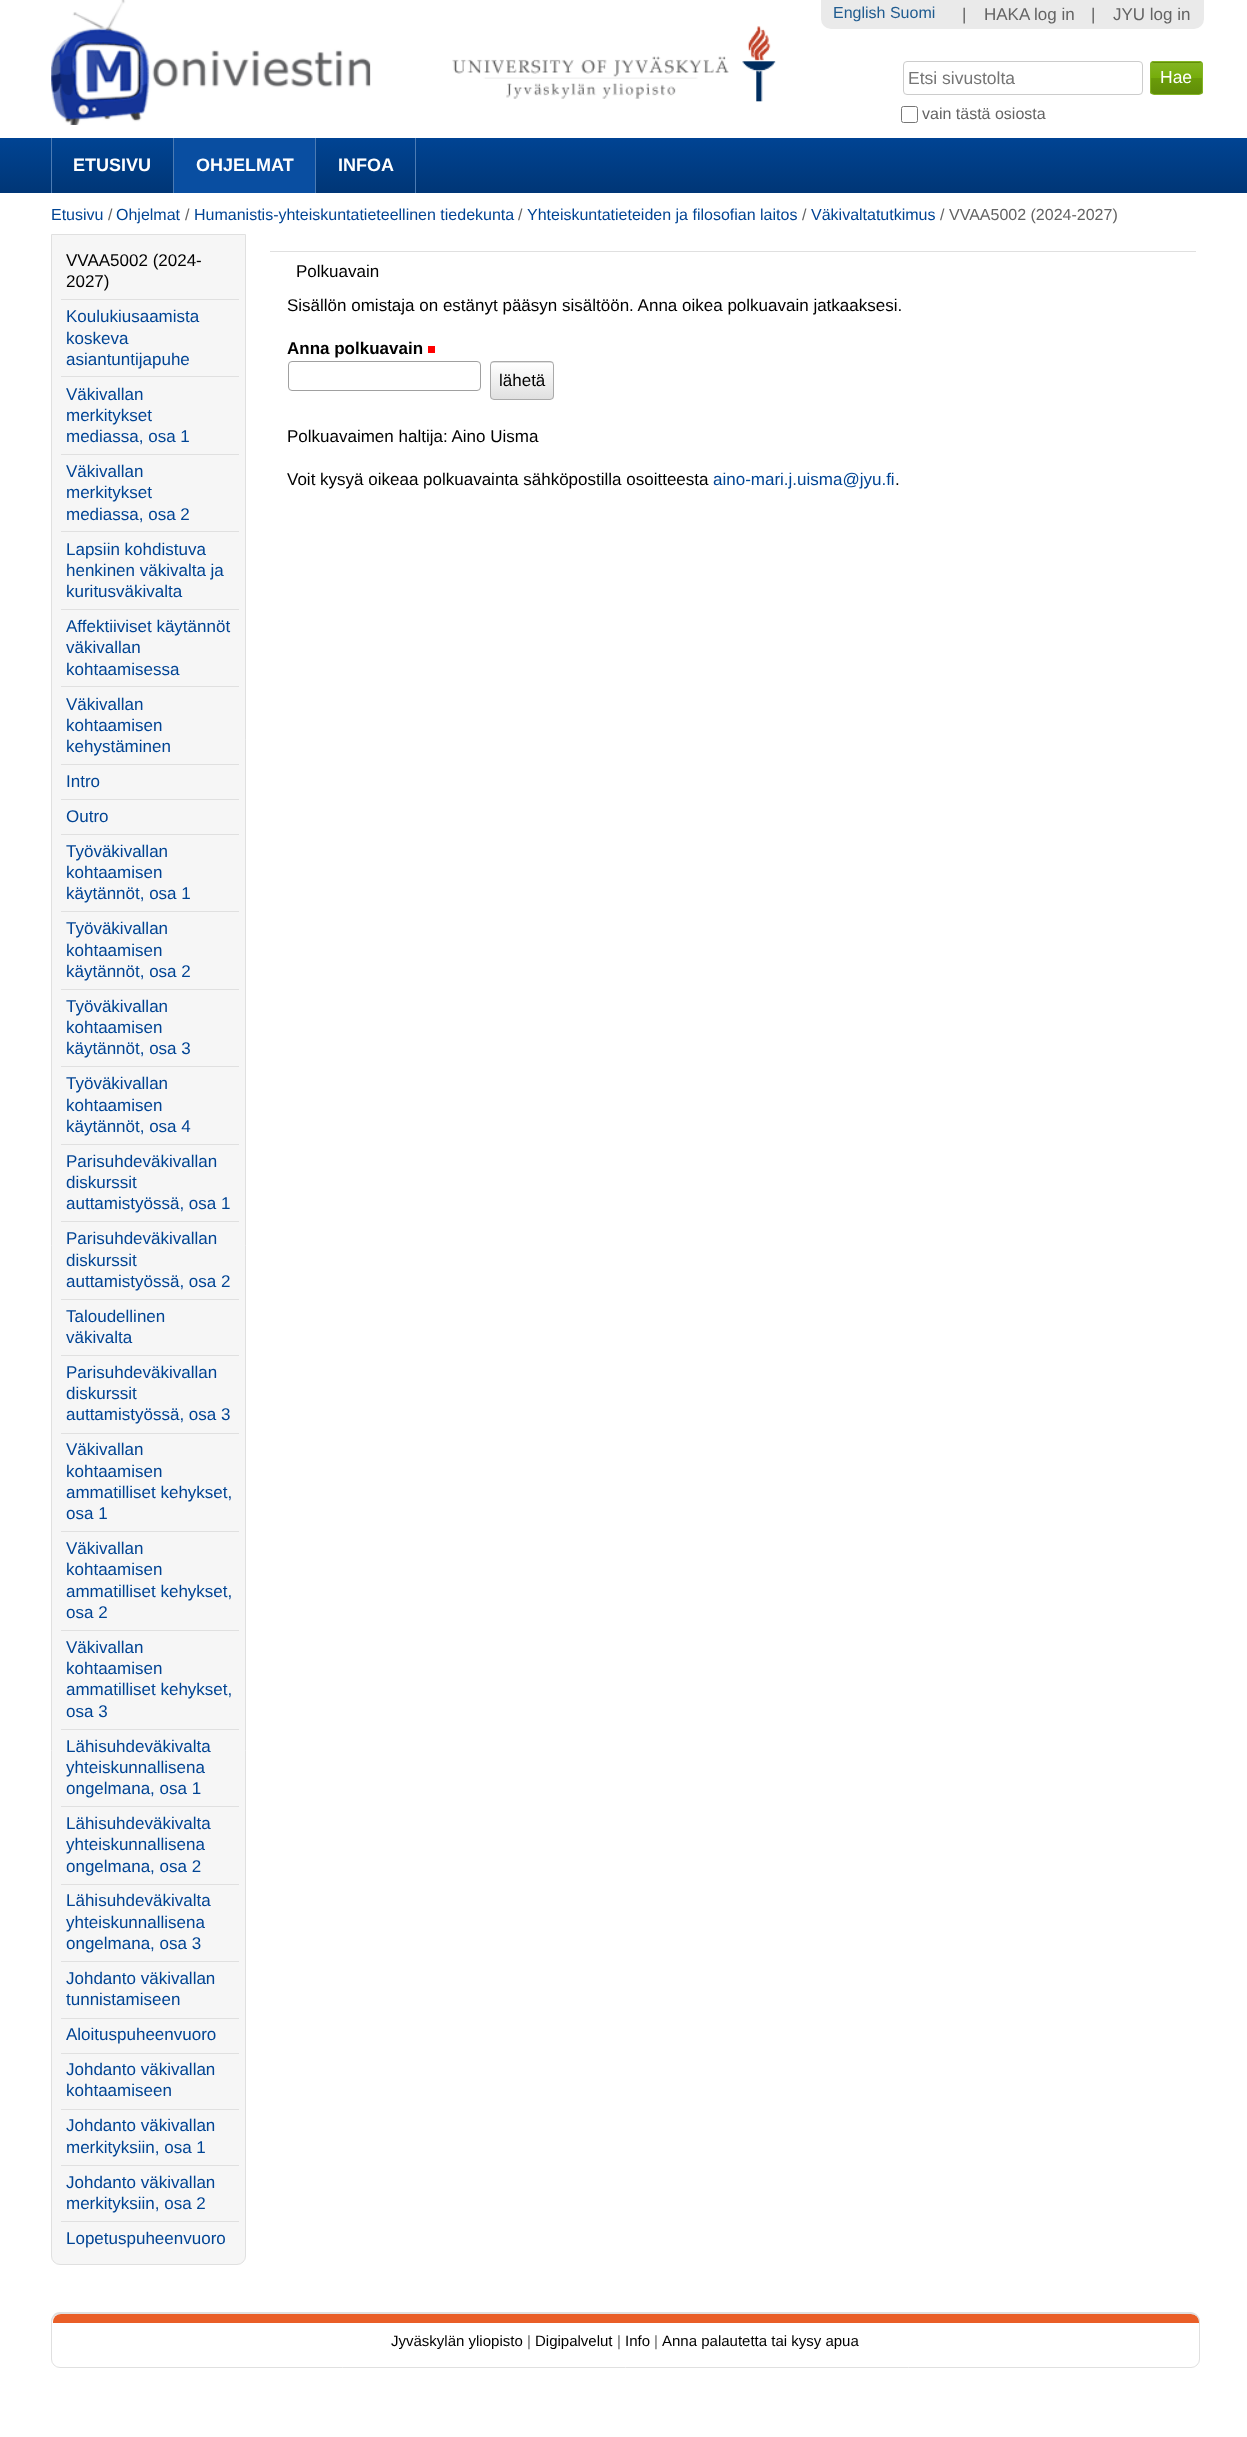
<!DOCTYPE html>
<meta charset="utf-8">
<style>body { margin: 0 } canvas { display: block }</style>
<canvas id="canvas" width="1247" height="2437"></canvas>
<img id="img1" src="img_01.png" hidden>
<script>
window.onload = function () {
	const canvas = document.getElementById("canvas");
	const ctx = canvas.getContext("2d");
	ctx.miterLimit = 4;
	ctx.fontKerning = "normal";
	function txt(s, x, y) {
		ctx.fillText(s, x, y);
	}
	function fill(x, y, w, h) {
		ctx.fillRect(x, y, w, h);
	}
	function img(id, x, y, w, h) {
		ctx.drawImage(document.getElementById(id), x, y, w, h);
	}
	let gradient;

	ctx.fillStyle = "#FFFFFF";
	fill(0, 0, 1247, 2437);
	img("img1", 51, 0, 725, 125);
	ctx.fillStyle = "#EAEAEA";
	ctx.beginPath();
	ctx.roundRect(821, 0, 383, 29, [0, 0, 10, 10]);
	ctx.fill();
	ctx.fillStyle = "#F6F6F6";
	ctx.beginPath();
	ctx.roundRect(51.5, 234.5, 194, 2030, [0, 0, 8.5, 8.5]);
	ctx.fill();
	ctx.strokeStyle = "#E0E0E0";
	ctx.stroke();
	ctx.fillStyle = "#E0E0E0";
	fill(61, 299, 178, 1);
	fill(61, 376, 178, 1);
	fill(61, 454, 178, 1);
	fill(61, 531, 178, 1);
	fill(61, 609, 178, 1);
	fill(61, 686, 178, 1);
	fill(61, 764, 178, 1);
	fill(61, 799, 178, 1);
	fill(61, 834, 178, 1);
	fill(61, 911, 178, 1);
	fill(61, 989, 178, 1);
	fill(61, 1066, 178, 1);
	fill(61, 1144, 178, 1);
	fill(61, 1221, 178, 1);
	fill(61, 1299, 178, 1);
	fill(61, 1355, 178, 1);
	fill(61, 1433, 178, 1);
	fill(61, 1531, 178, 1);
	fill(61, 1630, 178, 1);
	fill(61, 1729, 178, 1);
	fill(61, 1806, 178, 1);
	fill(61, 1884, 178, 1);
	fill(61, 1961, 178, 1);
	fill(61, 2018, 178, 1);
	fill(61, 2053, 178, 1);
	fill(61, 2109, 178, 1);
	fill(61, 2165, 178, 1);
	fill(61, 2221, 178, 1);
	fill(270, 251, 926, 1);
	ctx.fillStyle = "#FF0000";
	fill(428, 346, 7, 7);
	ctx.beginPath();
	ctx.roundRect(288.5, 361.5, 192, 29, 3.5);
	ctx.strokeStyle = "#A0A0A0";
	ctx.stroke();
	ctx.save();
	ctx.beginPath();
	ctx.roundRect(490, 361, 64, 39, 4);
	ctx.clip();
	gradient = ctx.createLinearGradient(522, 326, 522, 363);
	gradient.addColorStop(0, "#FFFFFF");
	gradient.addColorStop(1, "#E0E0E0");
	ctx.fillStyle = gradient;
	fill(490, 361, 64, 2);
	gradient = ctx.createLinearGradient(522, 363, 522, 399);
	gradient.addColorStop(0, "#FFFFFF");
	gradient.addColorStop(1, "#E0E0E0");
	ctx.fillStyle = gradient;
	fill(490, 363, 64, 36);
	ctx.restore();
	ctx.beginPath();
	ctx.roundRect(490.5, 361.5, 63, 38, 3.5);
	ctx.strokeStyle = "#AAAAAA";
	ctx.stroke();
	ctx.beginPath();
	ctx.roundRect(51.5, 2313.5, 1148, 54, 8.5);
	ctx.strokeStyle = "#E0E0E0";
	ctx.stroke();
	ctx.fillStyle = "#E95E27";
	ctx.beginPath();
	ctx.roundRect(53, 2314, 1146, 9, [8, 8, 0, 0]);
	ctx.fill();
	ctx.fillStyle = "#E0E0E0";
	ctx.beginPath();
	ctx.moveTo(60, 2312);
	ctx.lineTo(1191, 2312);
	ctx.bezierCurveTo(1197, 2313, 1200, 2317, 1200, 2322);
	ctx.lineTo(51, 2322);
	ctx.bezierCurveTo(51, 2317, 54, 2312, 60, 2312);
	ctx.closePath();
	ctx.moveTo(60, 2314);
	ctx.lineTo(1191, 2314);
	ctx.bezierCurveTo(1195, 2314, 1199, 2317, 1199, 2321);
	ctx.lineTo(1199, 2322);
	ctx.lineTo(52, 2322);
	ctx.bezierCurveTo(52, 2318, 55, 2314, 60, 2314);
	ctx.closePath();
	ctx.fill("evenodd");
	ctx.beginPath();
	ctx.roundRect(903.5, 61.5, 239, 33, 3.5);
	ctx.strokeStyle = "#CCCCCC";
	ctx.stroke();
	ctx.save();
	ctx.beginPath();
	ctx.roundRect(1150, 61, 53, 34, 4);
	ctx.clip();
	gradient = ctx.createLinearGradient(1176, 31, 1176, 63);
	gradient.addColorStop(0, "#83B522");
	gradient.addColorStop(0.49, "#75AD0A");
	gradient.addColorStop(0.5, "#6A9C09");
	gradient.addColorStop(1, "#608D08");
	ctx.fillStyle = gradient;
	fill(1150, 61, 53, 2);
	gradient = ctx.createLinearGradient(1176, 63, 1176, 94);
	gradient.addColorStop(0, "#83B522");
	gradient.addColorStop(0.49, "#75AD0A");
	gradient.addColorStop(0.5, "#6A9C09");
	gradient.addColorStop(1, "#608D08");
	ctx.fillStyle = gradient;
	fill(1150, 63, 53, 31);
	ctx.restore();
	ctx.beginPath();
	ctx.roundRect(1150.5, 61.5, 52, 33, 3.5);
	ctx.strokeStyle = "#83B522";
	ctx.stroke();
	ctx.beginPath();
	ctx.roundRect(901.5, 106.5, 16, 16, 2);
	ctx.strokeStyle = "#767676";
	ctx.stroke();
	gradient = ctx.createLinearGradient(624, 137, 624, 193);
	gradient.addColorStop(0, "#004494");
	gradient.addColorStop(1, "#003676");
	ctx.fillStyle = gradient;
	fill(0, 138, 1247, 55);
	ctx.fillStyle = "#4C7BB3";
	fill(173, 138, 1, 55);
	fill(51, 138, 1, 55);
	ctx.fillStyle = "#094EA1";
	fill(174, 138, 141, 55);
	ctx.fillStyle = "#4C7BB3";
	fill(315, 138, 1, 55);
	fill(415, 138, 1, 55);
	ctx.font = "16px Liberation Sans";
	ctx.fillStyle = "#205C90";
	txt("English Suomi", 833, 18);
	ctx.font = "17px Liberation Sans";
	ctx.fillStyle = "#646464";
	txt("|", 962, 20);
	txt("HAKA log in", 984, 20);
	txt("|", 1091, 20);
	txt("JYU log in", 1113, 20);
	ctx.font = "16px Liberation Sans";
	ctx.fillStyle = "#004494";
	txt("Etusivu", 51, 220);
	ctx.fillStyle = "#646464";
	txt("/", 108, 220);
	ctx.fillStyle = "#004494";
	txt("Ohjelmat", 116, 220);
	ctx.fillStyle = "#646464";
	txt("/", 185, 220);
	ctx.fillStyle = "#004494";
	txt("Humanistis-yhteiskuntatieteellinen tiedekunta", 194, 220);
	ctx.fillStyle = "#646464";
	txt("/", 518, 220);
	ctx.fillStyle = "#004494";
	txt("Yhteiskuntatieteiden ja filosofian laitos", 527, 220);
	ctx.fillStyle = "#646464";
	txt("/", 802, 220);
	ctx.fillStyle = "#004494";
	txt("Väkivaltatutkimus", 811, 220);
	ctx.fillStyle = "#646464";
	txt("/", 940, 220);
	txt("VVAA5002 (2024-2027)", 949, 220);
	ctx.font = "17px Liberation Sans";
	ctx.fillStyle = "#000000";
	txt("VVAA5002 (2024-", 66, 266);
	txt("2027)", 66, 287);
	ctx.fillStyle = "#004494";
	txt("Koulukiusaamista", 66, 322);
	txt("koskeva", 66, 344);
	txt("asiantuntijapuhe", 66, 365);
	txt("Väkivallan", 66, 400);
	txt("merkitykset", 66, 421);
	txt("mediassa, osa 1", 66, 442);
	txt("Väkivallan", 66, 477);
	txt("merkitykset", 66, 498);
	txt("mediassa, osa 2", 66, 520);
	txt("Lapsiin kohdistuva", 66, 555);
	txt("henkinen väkivalta ja", 66, 576);
	txt("kuritusväkivalta", 66, 597);
	txt("Affektiiviset käytännöt", 66, 632);
	txt("väkivallan", 66, 653);
	txt("kohtaamisessa", 66, 675);
	txt("Väkivallan", 66, 710);
	txt("kohtaamisen", 66, 731);
	txt("kehystäminen", 66, 752);
	txt("Intro", 66, 787);
	txt("Outro", 66, 822);
	txt("Työväkivallan", 66, 857);
	txt("kohtaamisen", 66, 878);
	txt("käytännöt, osa 1", 66, 899);
	txt("Työväkivallan", 66, 934);
	txt("kohtaamisen", 66, 956);
	txt("käytännöt, osa 2", 66, 977);
	txt("Työväkivallan", 66, 1012);
	txt("kohtaamisen", 66, 1033);
	txt("käytännöt, osa 3", 66, 1054);
	txt("Työväkivallan", 66, 1089);
	txt("kohtaamisen", 66, 1111);
	txt("käytännöt, osa 4", 66, 1132);
	txt("Parisuhdeväkivallan", 66, 1167);
	txt("diskurssit", 66, 1188);
	txt("auttamistyössä, osa 1", 66, 1209);
	txt("Parisuhdeväkivallan", 66, 1244);
	txt("diskurssit", 66, 1266);
	txt("auttamistyössä, osa 2", 66, 1287);
	txt("Taloudellinen", 66, 1322);
	txt("väkivalta", 66, 1343);
	txt("Parisuhdeväkivallan", 66, 1378);
	txt("diskurssit", 66, 1399);
	txt("auttamistyössä, osa 3", 66, 1420);
	txt("Väkivallan", 66, 1455);
	txt("kohtaamisen", 66, 1477);
	txt("ammatilliset kehykset,", 66, 1498);
	txt("osa 1", 66, 1519);
	txt("Väkivallan", 66, 1554);
	txt("kohtaamisen", 66, 1575);
	txt("ammatilliset kehykset,", 66, 1597);
	txt("osa 2", 66, 1618);
	txt("Väkivallan", 66, 1653);
	txt("kohtaamisen", 66, 1674);
	txt("ammatilliset kehykset,", 66, 1695);
	txt("osa 3", 66, 1717);
	txt("Lähisuhdeväkivalta", 66, 1752);
	txt("yhteiskunnallisena", 66, 1773);
	txt("ongelmana, osa 1", 66, 1794);
	txt("Lähisuhdeväkivalta", 66, 1829);
	txt("yhteiskunnallisena", 66, 1850);
	txt("ongelmana, osa 2", 66, 1872);
	txt("Lähisuhdeväkivalta", 66, 1906);
	txt("yhteiskunnallisena", 66, 1928);
	txt("ongelmana, osa 3", 66, 1949);
	txt("Johdanto väkivallan", 66, 1984);
	txt("tunnistamiseen", 66, 2005);
	txt("Aloituspuheenvuoro", 66, 2040);
	txt("Johdanto väkivallan", 66, 2075);
	txt("kohtaamiseen", 66, 2096);
	txt("Johdanto väkivallan", 66, 2131);
	txt("merkityksiin, osa 1", 66, 2153);
	txt("Johdanto väkivallan", 66, 2188);
	txt("merkityksiin, osa 2", 66, 2209);
	txt("Lopetuspuheenvuoro", 66, 2244);
	ctx.fillStyle = "#000000";
	txt("Polkuavain", 296, 277);
	txt("Sisällön omistaja on estänyt pääsyn sisältöön. Anna oikea polkuavain jatkaaksesi.", 287, 311);
	ctx.font = "bold 17px Liberation Sans";
	txt("Anna polkuavain", 287, 354);
	ctx.font = "17px Liberation Sans";
	txt("lähetä", 499, 386);
	txt("Polkuavaimen haltija: Aino Uisma", 287, 442);
	txt("Voit kysyä oikeaa polkuavainta sähköpostilla osoitteesta", 287, 485);
	ctx.fillStyle = "#004494";
	txt("aino-mari.j.uisma@jyu.fi", 713, 485);
	ctx.fillStyle = "#000000";
	txt(".", 895, 485);
	ctx.font = "15px Liberation Sans";
	txt("Jyväskylän yliopisto", 391, 2346);
	ctx.fillStyle = "#646464";
	txt("|", 527, 2346);
	ctx.fillStyle = "#000000";
	txt("Digipalvelut", 535, 2346);
	ctx.fillStyle = "#646464";
	txt("|", 617, 2346);
	ctx.fillStyle = "#000000";
	txt("Info", 625, 2346);
	ctx.fillStyle = "#646464";
	txt("|", 654, 2346);
	ctx.fillStyle = "#000000";
	txt("Anna palautetta tai kysy apua", 662, 2346);
	ctx.font = "17.5px Liberation Sans";
	ctx.fillStyle = "#757575";
	txt("Etsi sivustolta", 908, 84);
	ctx.fillStyle = "#FFFFFF";
	txt("Hae", 1160, 83);
	ctx.font = "16px Liberation Sans";
	ctx.fillStyle = "#646464";
	txt("vain tästä osiosta", 922, 119);
	ctx.font = "bold 18px Liberation Sans";
	ctx.fillStyle = "#FFFFFF";
	txt("ETUSIVU", 73, 171);
	txt("OHJELMAT", 196, 171);
	txt("INFOA", 338, 171);
};
</script>
